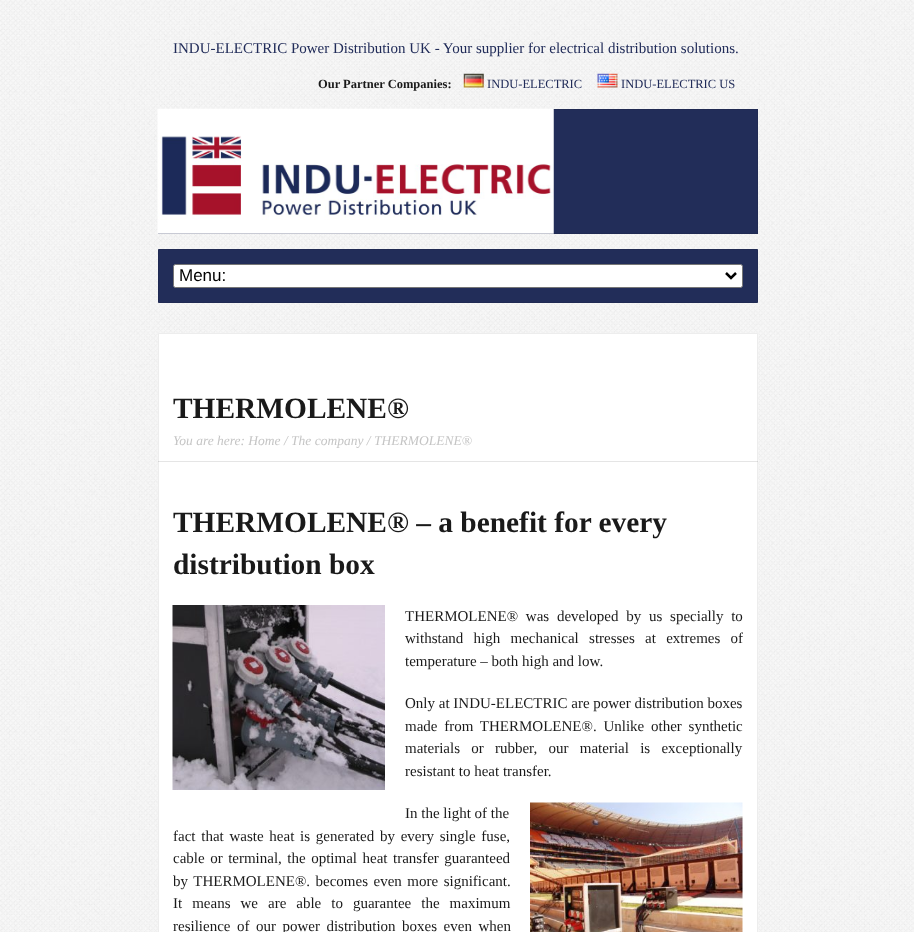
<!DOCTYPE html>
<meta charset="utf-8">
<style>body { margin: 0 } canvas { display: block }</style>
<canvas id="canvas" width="914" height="932"></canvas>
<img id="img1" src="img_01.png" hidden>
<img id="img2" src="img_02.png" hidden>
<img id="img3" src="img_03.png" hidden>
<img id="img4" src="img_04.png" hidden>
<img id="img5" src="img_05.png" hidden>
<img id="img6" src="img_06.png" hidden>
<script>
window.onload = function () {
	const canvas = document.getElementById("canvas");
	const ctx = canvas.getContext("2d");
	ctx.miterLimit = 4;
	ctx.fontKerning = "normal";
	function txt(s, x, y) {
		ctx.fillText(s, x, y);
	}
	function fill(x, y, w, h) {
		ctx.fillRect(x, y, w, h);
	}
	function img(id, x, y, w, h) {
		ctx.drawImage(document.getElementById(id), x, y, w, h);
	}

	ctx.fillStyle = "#FFFFFF";
	fill(0, 0, 914, 932);
	img("img1", 0, 0, 914, 932);
	img("img2", 463, 73, 21, 15);
	img("img3", 597, 73, 21, 15);
	ctx.fillStyle = "#222D59";
	fill(553, 110, 204, 123);
	ctx.strokeStyle = "#202A53";
	ctx.strokeRect(158.5, 109.5, 599, 124);
	img("img4", 157, 108, 397, 126);
	ctx.beginPath();
	ctx.rect(158.5, 249.5, 599, 53);
	ctx.fill();
	ctx.stroke();
	ctx.fillStyle = "#FFFFFF";
	ctx.beginPath();
	ctx.roundRect(173.5, 264.5, 569, 23, 2);
	ctx.fill();
	ctx.strokeStyle = "#767676";
	ctx.stroke();
	ctx.beginPath();
	ctx.moveTo(726, 273);
	ctx.lineTo(731, 278);
	ctx.lineTo(736, 273);
	ctx.strokeStyle = "#000000";
	ctx.lineWidth = 2.5;
	ctx.stroke();
	ctx.beginPath();
	ctx.rect(158.5, 333.5, 599, 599);
	ctx.fill();
	ctx.strokeStyle = "#EDEDED";
	ctx.lineWidth = 1;
	ctx.stroke();
	ctx.fillStyle = "rgba(0, 0, 0, 0.1)";
	fill(158, 461, 600, 1);
	img("img5", 172, 605, 213, 185);
	img("img6", 530, 802, 213, 130);
	ctx.font = "15px Liberation Serif";
	ctx.fillStyle = "#212C59";
	txt("INDU-ELECTRIC Power Distribution UK - Your supplier for electrical distribution solutions.", 173, 53);
	ctx.font = "bold 12.5px Liberation Serif";
	ctx.fillStyle = "#1A1A1A";
	txt("Our Partner Companies:", 318, 88);
	ctx.font = "12.5px Liberation Serif";
	ctx.fillStyle = "#212C59";
	txt("INDU-ELECTRIC", 487, 88);
	txt("INDU-ELECTRIC US", 621, 88);
	ctx.font = "17px Liberation Sans";
	ctx.fillStyle = "#000000";
	txt("Menu:", 179, 281);
	ctx.font = "bold 29.4px Liberation Serif";
	ctx.fillStyle = "#1A1A1A";
	txt("THERMOLENE®", 173, 418);
	ctx.font = "italic 13.5px Liberation Serif";
	ctx.fillStyle = "#C5C5C5";
	txt("You are here: Home / The company / THERMOLENE®", 173, 445);
	ctx.font = "bold 29.4px Liberation Serif";
	ctx.fillStyle = "#1A1A1A";
	txt("THERMOLENE® – a benefit for every", 173, 532);
	txt("distribution box", 173, 574);
	ctx.wordSpacing = "4px";
	ctx.font = "15px Liberation Serif";
	txt("THERMOLENE® was developed by us specially to", 405, 621);
	ctx.wordSpacing = "6.5px";
	txt("withstand high mechanical stresses at extremes of", 405, 643);
	ctx.wordSpacing = "0px";
	txt("temperature – both high and low.", 405, 666);
	txt("Only at INDU-ELECTRIC are power distribution boxes", 405, 708);
	ctx.wordSpacing = "3px";
	txt("made from THERMOLENE®. Unlike other synthetic", 405, 731);
	ctx.wordSpacing = "7.5px";
	txt("materials or rubber, our material is exceptionally", 405, 753);
	ctx.wordSpacing = "0px";
	txt("resistant to heat transfer.", 405, 776);
	txt("In the light of the", 405, 818);
	ctx.wordSpacing = "2px";
	txt("fact that waste heat is generated by every single fuse,", 173, 841);
	ctx.wordSpacing = "1.75px";
	txt("cable or terminal, the optimal heat transfer guaranteed", 173, 863);
	txt("by THERMOLENE®. becomes even more significant.", 173, 886);
	ctx.wordSpacing = "6.25px";
	txt("It means we are able to guarantee the maximum", 173, 908);
	ctx.wordSpacing = "2.75px";
	txt("resilience of our power distribution boxes even when", 173, 931);
};
</script>
